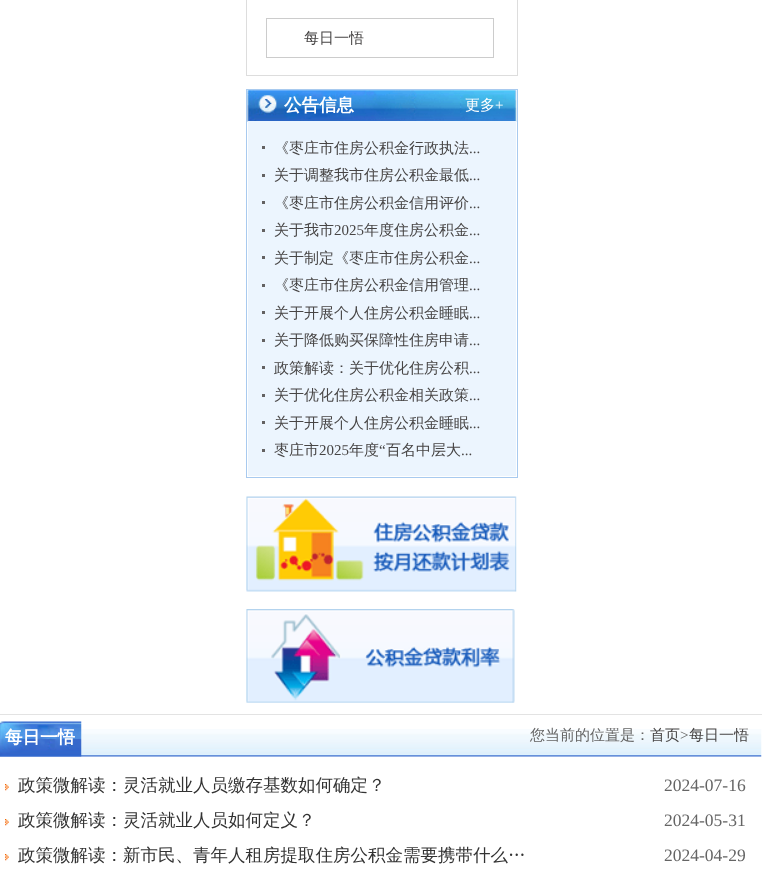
<!DOCTYPE html>
<meta charset="utf-8">
<style>body { margin: 0 } canvas { display: block }</style>
<canvas id="canvas" width="762" height="883"></canvas>
<img id="img1" src="img_01.png" hidden>
<img id="img2" src="img_02.png" hidden>
<img id="img3" src="img_03.png" hidden>
<img id="img4" src="img_04.png" hidden>
<img id="img5" src="img_05.png" hidden>
<img id="img6" src="img_06.png" hidden>
<script>
window.onload = function () {
	const canvas = document.getElementById("canvas");
	const ctx = canvas.getContext("2d");
	ctx.miterLimit = 4;
	ctx.fontKerning = "normal";
	function txt(s, x, y) {
		ctx.fillText(s, x, y);
	}
	function fill(x, y, w, h) {
		ctx.fillRect(x, y, w, h);
	}
	function img(id, x, y, w, h) {
		ctx.drawImage(document.getElementById(id), x, y, w, h);
	}

	ctx.fillStyle = "#FFFFFF";
	fill(0, 0, 762, 883);
	ctx.strokeStyle = "#DDDDDD";
	ctx.strokeRect(246.5, -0.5, 271, 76);
	ctx.strokeStyle = "#CCCCCC";
	ctx.strokeRect(266.5, 18.5, 227, 39);
	ctx.strokeStyle = "#A8CAEF";
	ctx.strokeRect(246.5, 89.5, 271, 388);
	img("img1", 247, 90, 270, 32);
	ctx.fillStyle = "#ECF5FE";
	fill(248, 121, 268, 355);
	ctx.fillStyle = "#636161";
	fill(262, 146, 3, 3);
	fill(262, 174, 3, 3);
	fill(262, 201, 3, 3);
	fill(262, 229, 3, 3);
	fill(262, 256, 3, 3);
	fill(262, 284, 3, 3);
	fill(262, 311, 3, 3);
	fill(262, 339, 3, 3);
	fill(262, 366, 3, 3);
	fill(262, 394, 3, 3);
	fill(262, 421, 3, 3);
	fill(262, 449, 3, 3);
	img("img2", 246, 496, 271, 96);
	img("img3", 246, 609, 269, 94);
	ctx.strokeStyle = "#E3E3E3";
	ctx.strokeRect(-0.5, 714.5, 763, 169);
	img("img4", 0, 729, 762, 28);
	img("img5", 0, 721, 82, 36);
	img("img6", 5, 784, 4, 7);
	img("img6", 5, 819, 4, 7);
	img("img6", 5, 854, 4, 7);
	ctx.font = "500 15px WenQuanYi Zen Hei";
	ctx.fillStyle = "#474545";
	txt("每日一悟", 304, 43);
	ctx.font = "bold 17.5px WenQuanYi Zen Hei";
	ctx.fillStyle = "#FFFFFF";
	txt("公告信息", 284, 111);
	ctx.font = "500 15px WenQuanYi Zen Hei";
	txt("更多", 465, 110);
	ctx.font = "15px Liberation Serif";
	txt("+", 495, 110);
	ctx.font = "500 15px WenQuanYi Zen Hei";
	ctx.fillStyle = "#474545";
	txt("《枣庄市住房公积金行政执法", 274, 153);
	ctx.font = "15px Liberation Serif";
	txt("...", 469, 153);
	ctx.font = "500 15px WenQuanYi Zen Hei";
	txt("关于调整我市住房公积金最低", 274, 180);
	ctx.font = "15px Liberation Serif";
	txt("...", 469, 180);
	ctx.font = "500 15px WenQuanYi Zen Hei";
	txt("《枣庄市住房公积金信用评价", 274, 208);
	ctx.font = "15px Liberation Serif";
	txt("...", 469, 208);
	ctx.font = "500 15px WenQuanYi Zen Hei";
	txt("关于我市", 274, 235);
	ctx.font = "15px Liberation Serif";
	txt("2025", 334, 235);
	ctx.font = "500 15px WenQuanYi Zen Hei";
	txt("年度住房公积金", 364, 235);
	ctx.font = "15px Liberation Serif";
	txt("...", 469, 235);
	ctx.font = "500 15px WenQuanYi Zen Hei";
	txt("关于制定《枣庄市住房公积金", 274, 263);
	ctx.font = "15px Liberation Serif";
	txt("...", 469, 263);
	ctx.font = "500 15px WenQuanYi Zen Hei";
	txt("《枣庄市住房公积金信用管理", 274, 290);
	ctx.font = "15px Liberation Serif";
	txt("...", 469, 290);
	ctx.font = "500 15px WenQuanYi Zen Hei";
	txt("关于开展个人住房公积金睡眠", 274, 318);
	ctx.font = "15px Liberation Serif";
	txt("...", 469, 318);
	ctx.font = "500 15px WenQuanYi Zen Hei";
	txt("关于降低购买保障性住房申请", 274, 345);
	ctx.font = "15px Liberation Serif";
	txt("...", 469, 345);
	ctx.font = "500 15px WenQuanYi Zen Hei";
	txt("政策解读：关于优化住房公积", 274, 373);
	ctx.font = "15px Liberation Serif";
	txt("...", 469, 373);
	ctx.font = "500 15px WenQuanYi Zen Hei";
	txt("关于优化住房公积金相关政策", 274, 400);
	ctx.font = "15px Liberation Serif";
	txt("...", 469, 400);
	ctx.font = "500 15px WenQuanYi Zen Hei";
	txt("关于开展个人住房公积金睡眠", 274, 428);
	ctx.font = "15px Liberation Serif";
	txt("...", 469, 428);
	ctx.font = "500 15px WenQuanYi Zen Hei";
	txt("枣庄市", 274, 455);
	ctx.font = "15px Liberation Serif";
	txt("2025", 319, 455);
	ctx.font = "500 15px WenQuanYi Zen Hei";
	txt("年度", 349, 455);
	ctx.font = "15px Liberation Serif";
	txt("“", 379, 455);
	ctx.font = "500 15px WenQuanYi Zen Hei";
	txt("百名中层大", 386, 455);
	ctx.font = "15px Liberation Serif";
	txt("...", 461, 455);
	ctx.font = "bold 17.5px WenQuanYi Zen Hei";
	ctx.fillStyle = "#FFFFFF";
	txt("每日一悟", 5, 743);
	ctx.font = "500 15px WenQuanYi Zen Hei";
	ctx.fillStyle = "#656565";
	txt("您当前的位置是：", 530, 740);
	ctx.fillStyle = "#474545";
	txt("首页", 650, 740);
	ctx.font = "15px Liberation Serif";
	ctx.fillStyle = "#656565";
	txt(">", 680, 740);
	ctx.font = "500 15px WenQuanYi Zen Hei";
	ctx.fillStyle = "#474545";
	txt("每日一悟", 689, 740);
	ctx.font = "500 17.5px WenQuanYi Zen Hei";
	ctx.fillStyle = "#333333";
	txt("政策微解读：灵活就业人员缴存基数如何确定？", 18, 791);
	ctx.font = "17.5px Liberation Serif";
	ctx.fillStyle = "#656565";
	txt("2024-07-16", 664, 791);
	ctx.font = "500 17.5px WenQuanYi Zen Hei";
	ctx.fillStyle = "#333333";
	txt("政策微解读：灵活就业人员如何定义？", 18, 826);
	ctx.font = "17.5px Liberation Serif";
	ctx.fillStyle = "#656565";
	txt("2024-05-31", 664, 826);
	ctx.font = "500 17.5px WenQuanYi Zen Hei";
	ctx.fillStyle = "#333333";
	txt("政策微解读：新市民、青年人租房提取住房公积金需要携带什么…", 18, 861);
	ctx.font = "17.5px Liberation Serif";
	ctx.fillStyle = "#656565";
	txt("2024-04-29", 664, 861);
};
</script>
